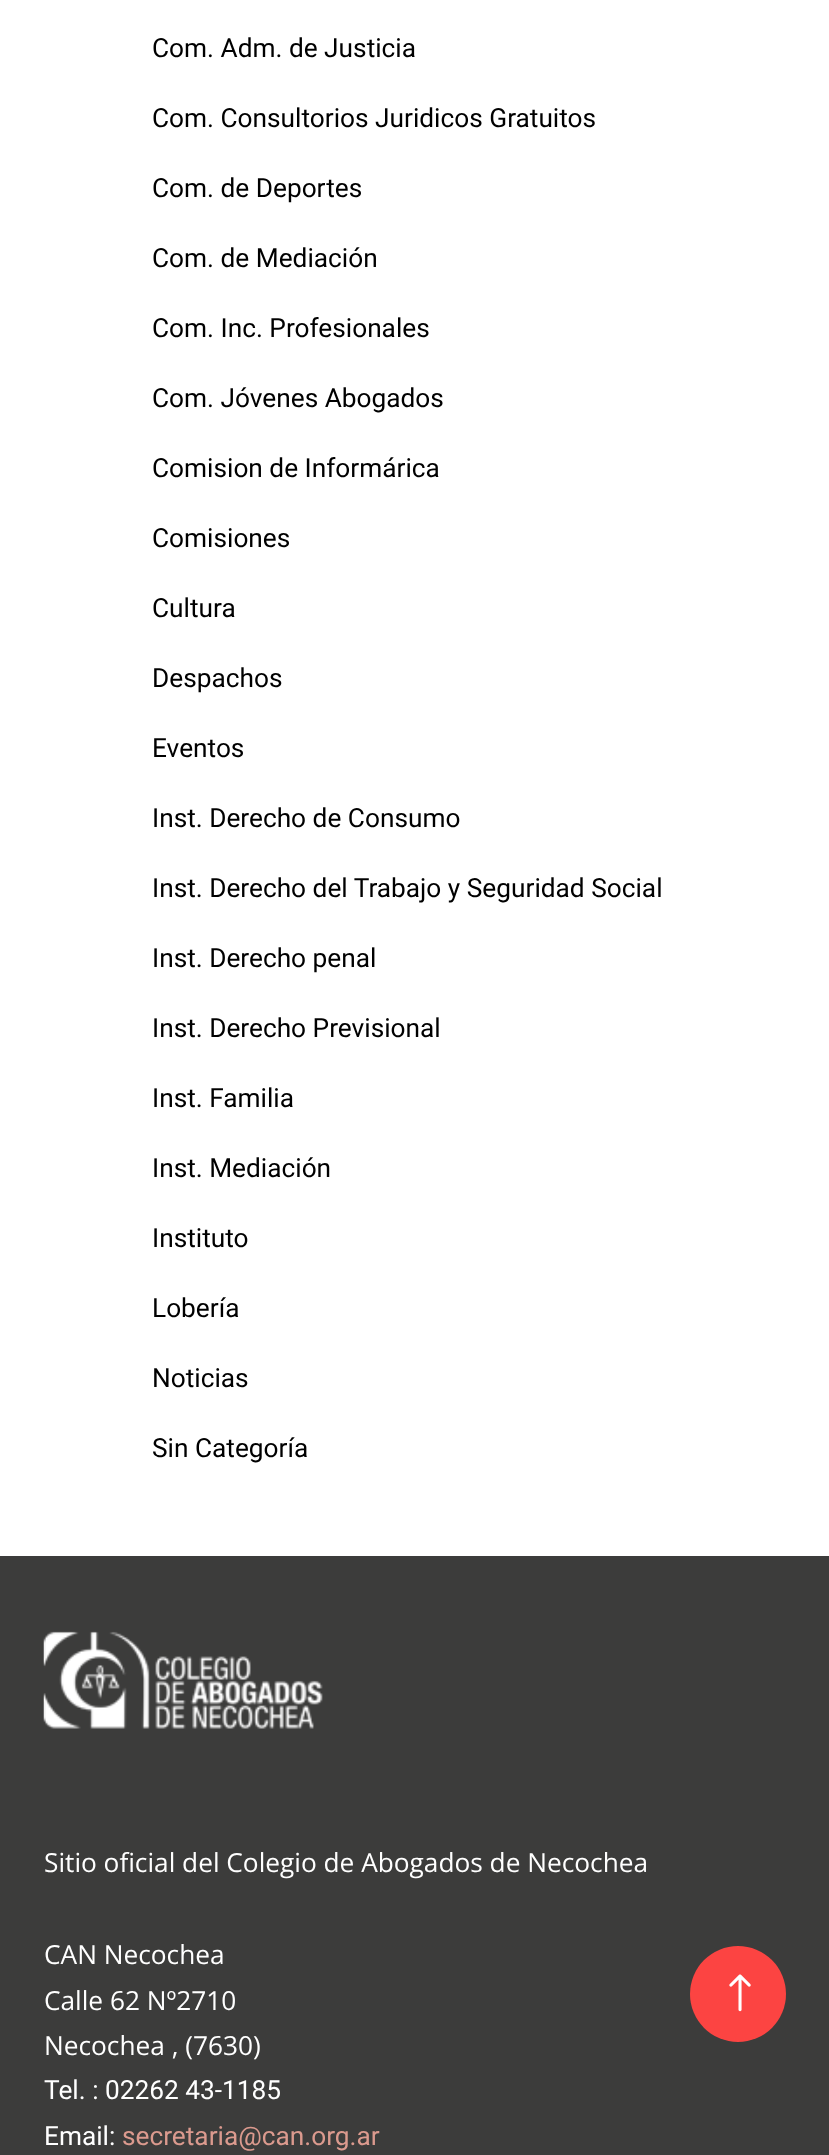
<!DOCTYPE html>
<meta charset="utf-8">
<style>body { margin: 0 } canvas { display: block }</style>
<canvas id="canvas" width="829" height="2155"></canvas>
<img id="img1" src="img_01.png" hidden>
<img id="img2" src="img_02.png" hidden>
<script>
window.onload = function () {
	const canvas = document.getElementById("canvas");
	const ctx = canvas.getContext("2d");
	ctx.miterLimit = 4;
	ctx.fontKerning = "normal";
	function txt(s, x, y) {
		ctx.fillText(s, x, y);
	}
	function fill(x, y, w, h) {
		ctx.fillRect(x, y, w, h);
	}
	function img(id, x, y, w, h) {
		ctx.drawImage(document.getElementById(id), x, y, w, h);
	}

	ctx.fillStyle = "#FFFFFF";
	fill(0, 0, 829, 2155);
	ctx.fillStyle = "#3C3C3B";
	fill(0, 1556, 829, 599);
	img("img1", 43, 1631, 280, 98);
	ctx.fillStyle = "#FC4442";
	ctx.beginPath();
	ctx.arc(738, 1994, 48, 0, Math.PI * 2);
	ctx.fill();
	img("img2", 729, 1974, 22, 38);
	ctx.font = "26.25px Roboto";
	ctx.fillStyle = "#000000";
	txt("Com. Adm. de Justicia", 152, 57);
	txt("Com. Consultorios Juridicos Gratuitos", 152, 127);
	txt("Com. de Deportes", 152, 197);
	txt("Com. de Mediación", 152, 267);
	txt("Com. Inc. Profesionales", 152, 337);
	txt("Com. Jóvenes Abogados", 152, 407);
	txt("Comision de Informárica", 152, 477);
	txt("Comisiones", 152, 547);
	txt("Cultura", 152, 617);
	txt("Despachos", 152, 687);
	txt("Eventos", 152, 757);
	txt("Inst. Derecho de Consumo", 152, 827);
	txt("Inst. Derecho del Trabajo y Seguridad Social", 152, 897);
	txt("Inst. Derecho penal", 152, 967);
	txt("Inst. Derecho Previsional", 152, 1037);
	txt("Inst. Familia", 152, 1107);
	txt("Inst. Mediación", 152, 1177);
	txt("Instituto", 152, 1247);
	txt("Lobería", 152, 1317);
	txt("Noticias", 152, 1387);
	txt("Sin Categoría", 152, 1457);
	ctx.font = "26.25px Open Sans";
	ctx.fillStyle = "#FFFFFF";
	txt("Sitio oficial del Colegio de Abogados de Necochea", 44, 1872);
	txt("CAN Necochea", 44, 1964);
	txt("Calle 62 Nº2710", 44, 2010);
	txt("Necochea , (7630)", 44, 2055);
	ctx.font = "26.25px Roboto";
	txt("Tel. : 02262 43-1185", 44, 2099);
	txt("Email:", 44, 2145);
	ctx.fillStyle = "#DB9A8E";
	txt("secretaria@can.org.ar", 122, 2145);
};
</script>
